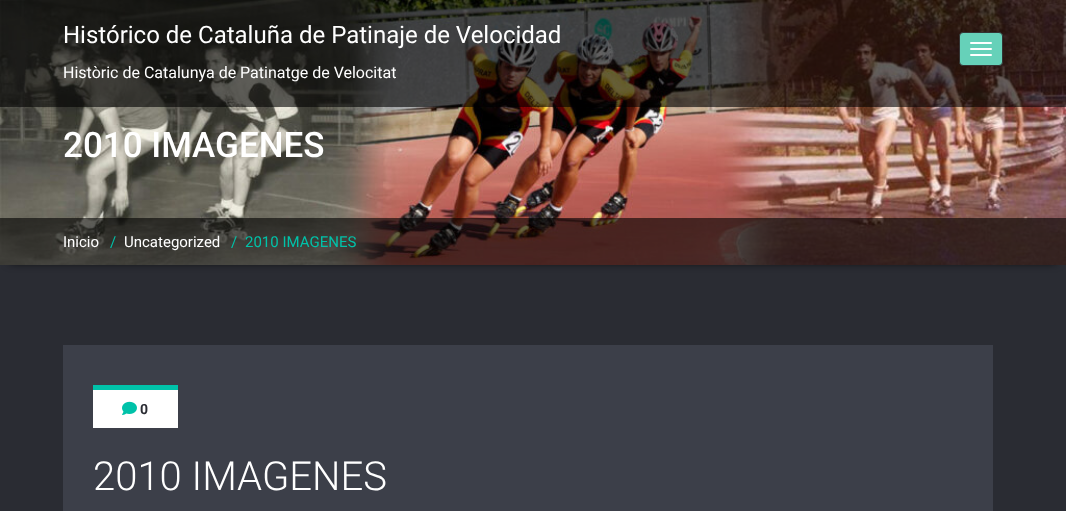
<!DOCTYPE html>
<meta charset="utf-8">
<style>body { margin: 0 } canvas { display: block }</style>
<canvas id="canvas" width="1066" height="511"></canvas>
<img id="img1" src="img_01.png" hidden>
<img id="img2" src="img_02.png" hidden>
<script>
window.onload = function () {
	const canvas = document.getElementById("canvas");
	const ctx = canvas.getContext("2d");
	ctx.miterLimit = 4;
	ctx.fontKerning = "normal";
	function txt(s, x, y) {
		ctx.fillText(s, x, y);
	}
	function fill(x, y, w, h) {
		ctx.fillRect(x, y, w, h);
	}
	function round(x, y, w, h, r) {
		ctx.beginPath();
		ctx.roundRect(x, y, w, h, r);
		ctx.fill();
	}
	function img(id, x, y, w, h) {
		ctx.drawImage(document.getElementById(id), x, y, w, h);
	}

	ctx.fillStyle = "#2A2C33";
	fill(0, 0, 1066, 511);
	ctx.fillStyle = "#000000";
	ctx.filter = "blur(5px)";
	ctx.beginPath();
	ctx.rect(10, 17, 1046, 245);
	ctx.fill();
	ctx.filter = "none";
	img("img1", 0, 0, 1066, 265);
	ctx.fillStyle = "rgba(0, 0, 0, 0.6)";
	fill(0, 0, 1066, 107);
	ctx.fillStyle = "#66D1B9";
	ctx.beginPath();
	ctx.roundRect(959.5, 32.5, 43, 33, 3.5);
	ctx.fill();
	ctx.strokeStyle = "#333333";
	ctx.stroke();
	ctx.fillStyle = "#FFFFFF";
	round(970, 42, 22, 2, 1);
	round(970, 48, 22, 2, 1);
	round(970, 54, 22, 2, 1);
	ctx.fillStyle = "rgba(0, 0, 0, 0.6)";
	fill(0, 218, 1066, 47);
	ctx.fillStyle = "#3C3F49";
	fill(63, 345, 930, 166);
	ctx.fillStyle = "#FFFFFF";
	fill(93, 390, 85, 38);
	ctx.fillStyle = "#00C2A9";
	fill(93, 385, 85, 5);
	img("img2", 122, 401, 15, 14);
	ctx.font = "24px Roboto";
	ctx.fillStyle = "#FFFFFF";
	txt("Histórico de Cataluña de Patinaje de Velocidad", 63, 43);
	ctx.font = "16px Roboto";
	txt("Històric de Catalunya de Patinatge de Velocitat", 63, 78);
	ctx.font = "500 35px Roboto";
	txt("2010 IMAGENES", 63, 157);
	ctx.font = "15px Roboto";
	txt("Inicio", 63, 247);
	ctx.fillStyle = "#00C2A9";
	txt("/", 110, 247);
	ctx.fillStyle = "#FFFFFF";
	txt("Uncategorized", 124, 247);
	ctx.fillStyle = "#00C2A9";
	txt("/", 231, 247);
	txt("2010 IMAGENES", 245, 247);
	ctx.font = "bold 14px Roboto";
	ctx.fillStyle = "#2A2C33";
	txt("0", 140, 414);
	ctx.font = "300 40px Roboto";
	ctx.fillStyle = "#FFFFFF";
	txt("2010 IMAGENES", 93, 490);
};
</script>
